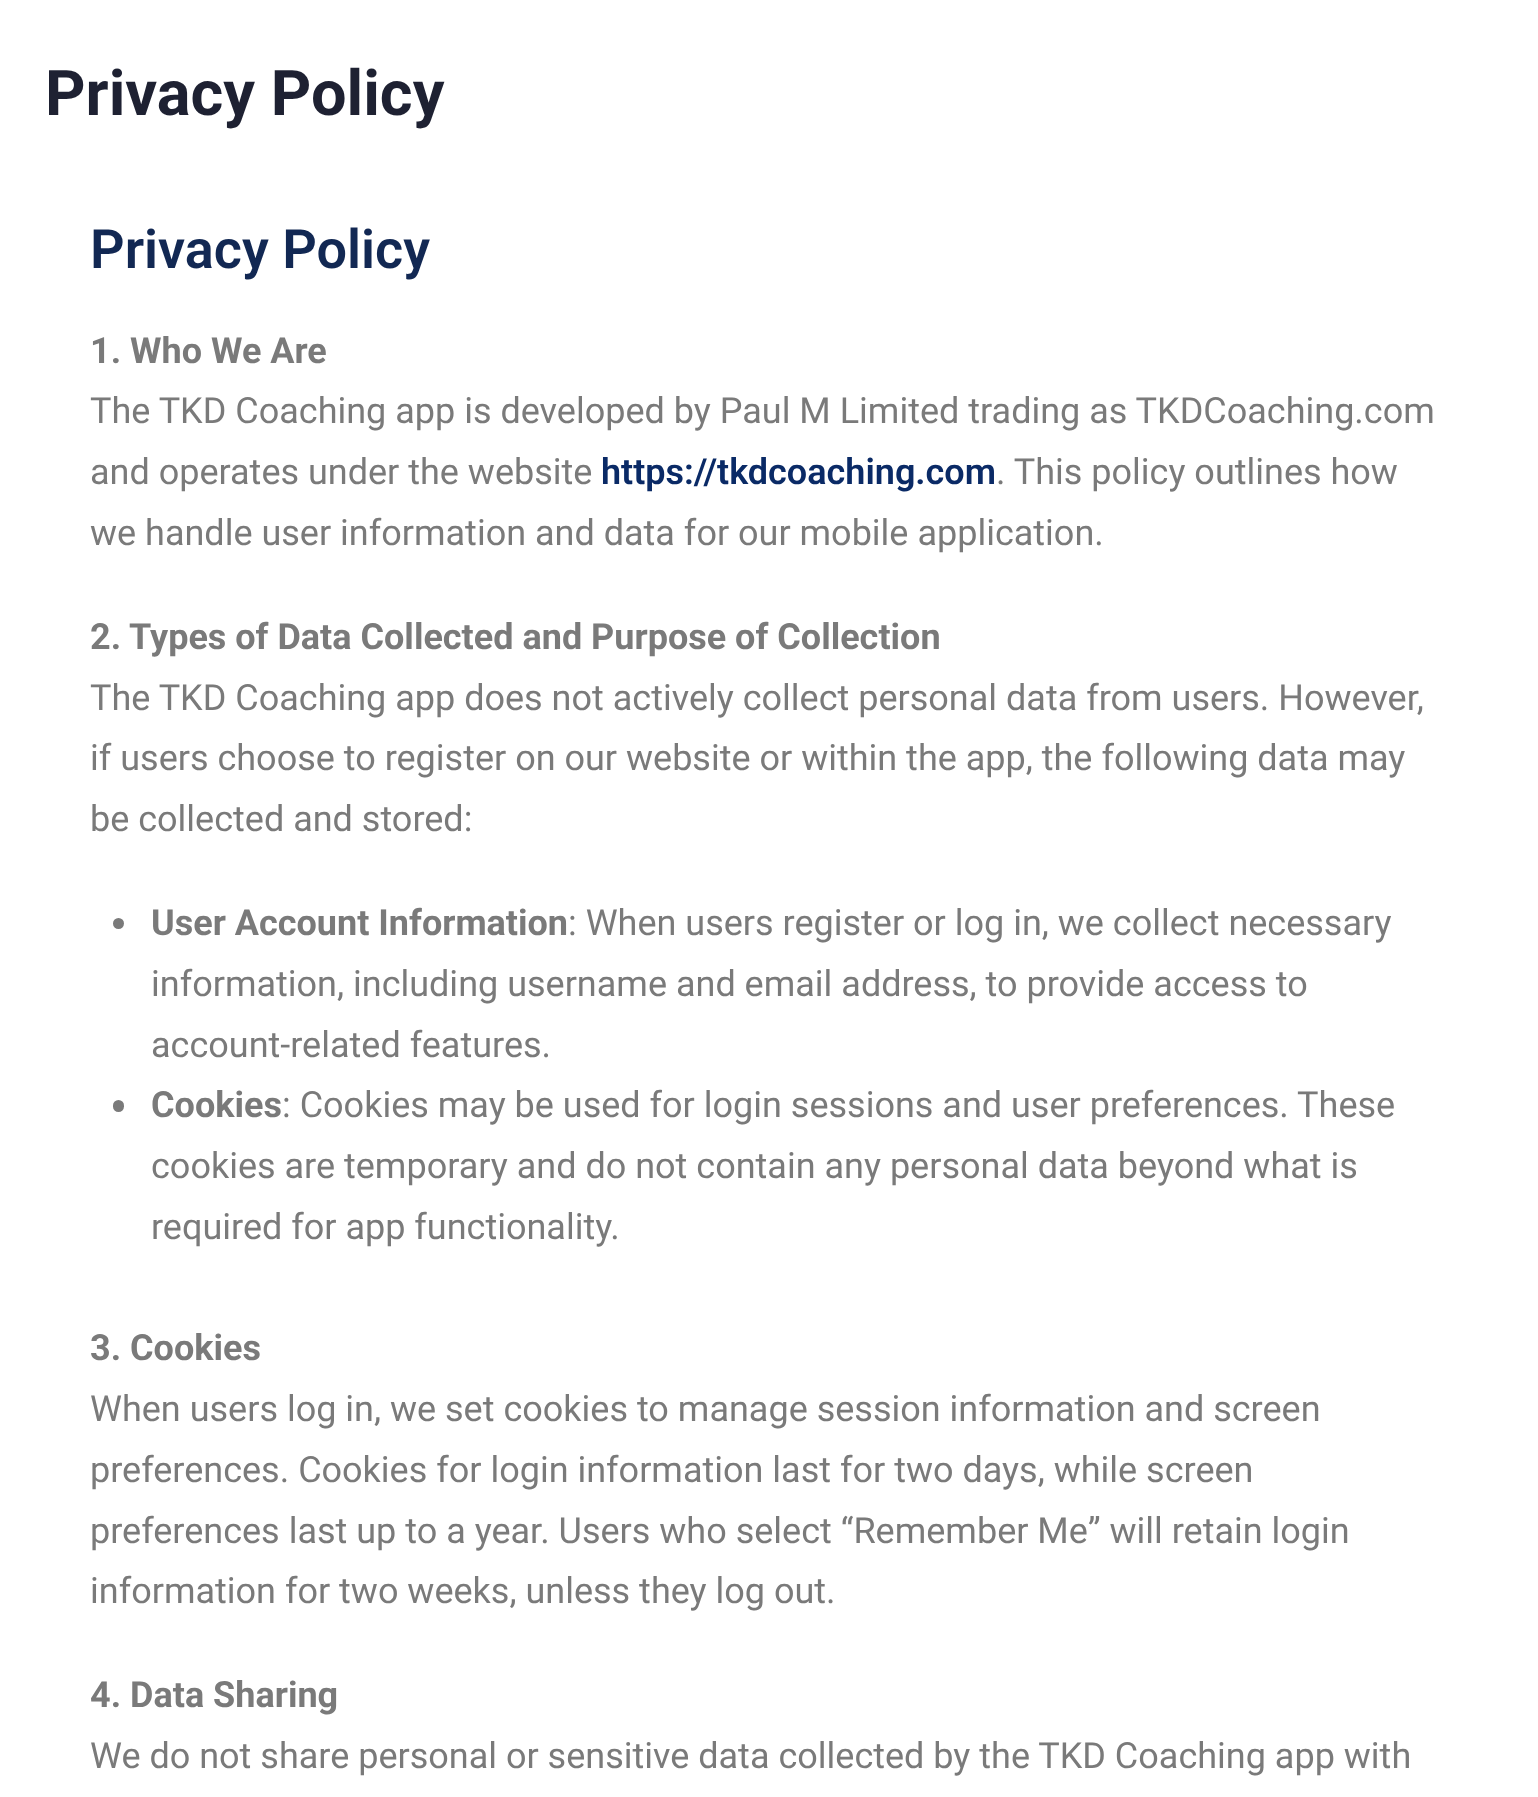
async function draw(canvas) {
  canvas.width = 1538
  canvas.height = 1797
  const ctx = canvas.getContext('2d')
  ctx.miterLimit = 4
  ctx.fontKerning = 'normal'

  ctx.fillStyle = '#fff'
  ctx.fillRect(0, 0, 1538, 1797)
  ctx.font = 'bold 63px Roboto'
  ctx.fillStyle = '#1e2132'
  ctx.fillText('Privacy Policy', 45, 115)
  ctx.font = '600 54px Roboto'
  ctx.fillStyle = '#122853'
  ctx.fillText('Privacy Policy', 90, 268)
  ctx.font = 'bold 36px Roboto'
  ctx.fillStyle = '#7a7a7a'
  ctx.fillText('1. Who We Are', 90, 363)
  ctx.font = '36px Roboto'
  ctx.fillText('The TKD Coaching app is developed by Paul M Limited trading as TKDCoaching.com', 90, 423)
  ctx.fillText('and operates under the website', 90, 484)
  ctx.font = '600 36px Roboto'
  ctx.fillStyle = '#0a2a66'
  ctx.fillText('https://tkdcoaching.com', 601, 484)
  ctx.font = '36px Roboto'
  ctx.fillStyle = '#7a7a7a'
  ctx.fillText('. This policy outlines how', 996, 484)
  ctx.fillText('we handle user information and data for our mobile application.', 90, 545)
  ctx.font = 'bold 36px Roboto'
  ctx.fillText('2. Types of Data Collected and Purpose of Collection', 90, 649)
  ctx.font = '36px Roboto'
  ctx.fillText('The TKD Coaching app does not actively collect personal data from users. However,', 90, 710)
  ctx.fillText('if users choose to register on our website or within the app, the following data may', 90, 770)
  ctx.fillText('be collected and stored:', 90, 831)
  ctx.beginPath()
  ctx.arc(118.5, 923.5, 5.5, 0, 2 * Math.PI)
  ctx.fill()
  ctx.font = 'bold 36px Roboto'
  ctx.fillText('User Account Information', 151, 935)
  ctx.font = '36px Roboto'
  ctx.fillText(': When users register or log in, we collect necessary', 568, 935)
  ctx.fillText('information, including username and email address, to provide access to', 151, 996)
  ctx.fillText('account-related features.', 151, 1057)
  ctx.beginPath()
  ctx.roundRect(113, 1100, 11, 12, 5.5)
  ctx.fill()
  ctx.font = 'bold 36px Roboto'
  ctx.fillText('Cookies', 151, 1117)
  ctx.font = '36px Roboto'
  ctx.fillText(': Cookies may be used for login sessions and user preferences. These', 282, 1117)
  ctx.fillText('cookies are temporary and do not contain any personal data beyond what is', 151, 1178)
  ctx.fillText('required for app functionality.', 151, 1239)
  ctx.font = 'bold 36px Roboto'
  ctx.fillText('3. Cookies', 90, 1360)
  ctx.font = '36px Roboto'
  ctx.fillText('When users log in, we set cookies to manage session information and screen', 90, 1421)
  ctx.fillText('preferences. Cookies for login information last for two days, while screen', 90, 1482)
  ctx.fillText('preferences last up to a year. Users who select “Remember Me” will retain login', 90, 1543)
  ctx.fillText('information for two weeks, unless they log out.', 90, 1603)
  ctx.font = 'bold 36px Roboto'
  ctx.fillText('4. Data Sharing', 90, 1707)
  ctx.font = '36px Roboto'
  ctx.fillText('We do not share personal or sensitive data collected by the TKD Coaching app with', 90, 1768)
}

draw(document.querySelector('canvas'))
